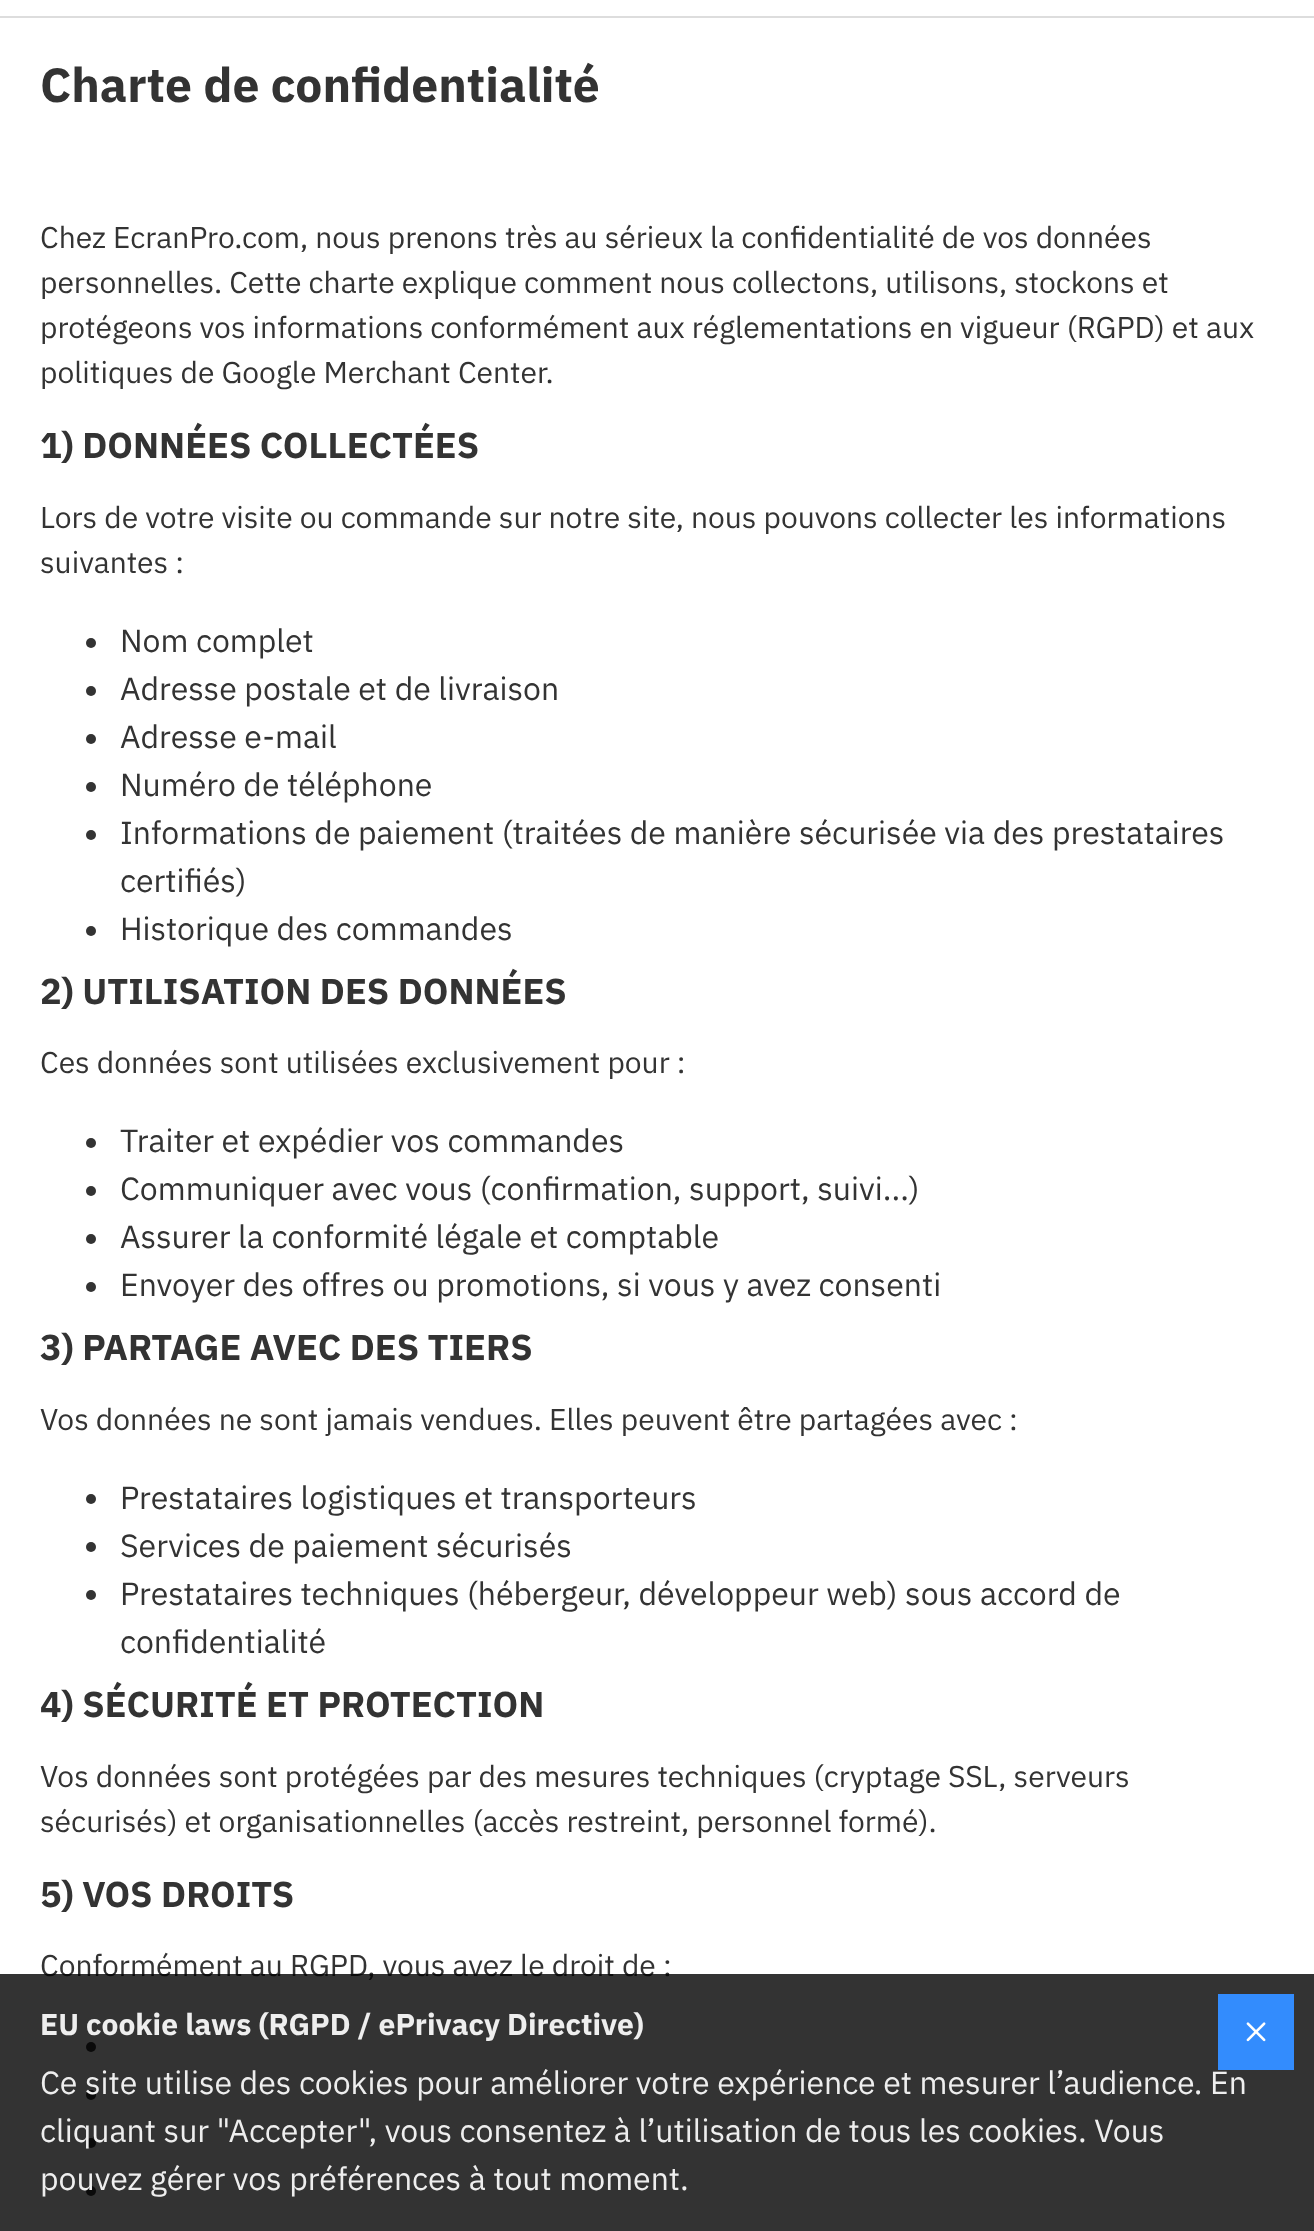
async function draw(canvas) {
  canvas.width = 1314
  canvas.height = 2231
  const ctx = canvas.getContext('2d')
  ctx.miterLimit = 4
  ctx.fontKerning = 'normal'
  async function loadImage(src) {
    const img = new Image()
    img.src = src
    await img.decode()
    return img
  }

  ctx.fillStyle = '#fff'
  ctx.fillRect(0, 0, 1314, 2231)
  ctx.fillStyle = '#ddd'
  ctx.fillRect(0, 16, 1314, 2)
  ctx.font = 'bold 48px IBM Plex Sans'
  ctx.fillStyle = '#333'
  ctx.fillText('Charte de confidentialité', 40, 102)
  ctx.font = '30px IBM Plex Sans'
  ctx.fillText('Chez EcranPro.com, nous prenons très au sérieux la confidentialité de vos données', 40, 248)
  ctx.fillText('personnelles. Cette charte explique comment nous collectons, utilisons, stockons et', 40, 293)
  ctx.fillText('protégeons vos informations conformément aux réglementations en vigueur (RGPD) et aux', 40, 338)
  ctx.fillText('politiques de Google Merchant Center.', 40, 383)
  ctx.font = 'bold 36px IBM Plex Sans'
  ctx.fillText('1) DONNÉES COLLECTÉES', 40, 458)
  ctx.font = '30px IBM Plex Sans'
  ctx.fillText('Lors de votre visite ou commande sur notre site, nous pouvons collecter les informations', 40, 528)
  ctx.fillText('suivantes :', 40, 573)
  ctx.beginPath()
  ctx.arc(91, 643, 5, 0, 2 * Math.PI)
  ctx.fill()
  ctx.font = '32px IBM Plex Sans'
  ctx.fillText('Nom complet', 120, 652)
  ctx.beginPath()
  ctx.arc(91, 691, 5, 0, 2 * Math.PI)
  ctx.fill()
  ctx.fillText('Adresse postale et de livraison', 120, 700)
  ctx.beginPath()
  ctx.arc(91, 739, 5, 0, 2 * Math.PI)
  ctx.fill()
  ctx.fillText('Adresse e-mail', 120, 748)
  ctx.beginPath()
  ctx.arc(91, 787, 5, 0, 2 * Math.PI)
  ctx.fill()
  ctx.fillText('Numéro de téléphone', 120, 796)
  ctx.beginPath()
  ctx.arc(91, 835, 5, 0, 2 * Math.PI)
  ctx.fill()
  ctx.fillText('Informations de paiement (traitées de manière sécurisée via des prestataires', 120, 844)
  ctx.fillText('certifiés)', 120, 892)
  ctx.beginPath()
  ctx.arc(91, 931, 5, 0, 2 * Math.PI)
  ctx.fill()
  ctx.fillText('Historique des commandes', 120, 940)
  ctx.font = 'bold 36px IBM Plex Sans'
  ctx.fillText('2) UTILISATION DES DONNÉES', 40, 1004)
  ctx.font = '30px IBM Plex Sans'
  ctx.fillText('Ces données sont utilisées exclusivement pour :', 40, 1073)
  ctx.beginPath()
  ctx.arc(91, 1143, 5, 0, 2 * Math.PI)
  ctx.fill()
  ctx.font = '32px IBM Plex Sans'
  ctx.fillText('Traiter et expédier vos commandes', 120, 1152)
  ctx.beginPath()
  ctx.arc(91, 1191, 5, 0, 2 * Math.PI)
  ctx.fill()
  ctx.fillText('Communiquer avec vous (confirmation, support, suivi...)', 120, 1200)
  ctx.beginPath()
  ctx.arc(91, 1239, 5, 0, 2 * Math.PI)
  ctx.fill()
  ctx.fillText('Assurer la conformité légale et comptable', 120, 1248)
  ctx.beginPath()
  ctx.arc(91, 1287, 5, 0, 2 * Math.PI)
  ctx.fill()
  ctx.fillText('Envoyer des offres ou promotions, si vous y avez consenti', 120, 1296)
  ctx.font = 'bold 36px IBM Plex Sans'
  ctx.fillText('3) PARTAGE AVEC DES TIERS', 40, 1360)
  ctx.font = '30px IBM Plex Sans'
  ctx.fillText('Vos données ne sont jamais vendues. Elles peuvent être partagées avec :', 40, 1430)
  ctx.beginPath()
  ctx.arc(91, 1499, 5, 0, 2 * Math.PI)
  ctx.fill()
  ctx.font = '32px IBM Plex Sans'
  ctx.fillText('Prestataires logistiques et transporteurs', 120, 1509)
  ctx.beginPath()
  ctx.arc(91, 1547, 5, 0, 2 * Math.PI)
  ctx.fill()
  ctx.fillText('Services de paiement sécurisés', 120, 1557)
  ctx.beginPath()
  ctx.arc(91, 1595, 5, 0, 2 * Math.PI)
  ctx.fill()
  ctx.fillText('Prestataires techniques (hébergeur, développeur web) sous accord de', 120, 1605)
  ctx.fillText('confidentialité', 120, 1653)
  ctx.font = 'bold 36px IBM Plex Sans'
  ctx.fillText('4) SÉCURITÉ ET PROTECTION', 40, 1717)
  ctx.font = '30px IBM Plex Sans'
  ctx.fillText('Vos données sont protégées par des mesures techniques (cryptage SSL, serveurs', 40, 1787)
  ctx.fillText('sécurisés) et organisationnelles (accès restreint, personnel formé).', 40, 1832)
  ctx.font = 'bold 36px IBM Plex Sans'
  ctx.fillText('5) VOS DROITS', 40, 1907)
  ctx.font = '30px IBM Plex Sans'
  ctx.fillText('Conformément au RGPD, vous avez le droit de :', 40, 1976)
  ctx.beginPath()
  ctx.arc(91, 2047, 5, 0, 2 * Math.PI)
  ctx.fill()
  ctx.beginPath()
  ctx.arc(91, 2095, 5, 0, 2 * Math.PI)
  ctx.fill()
  ctx.beginPath()
  ctx.arc(91, 2143, 5, 0, 2 * Math.PI)
  ctx.fill()
  ctx.beginPath()
  ctx.arc(91, 2191, 5, 0, 2 * Math.PI)
  ctx.fill()
  ctx.fillStyle = '#000000cc'
  ctx.fillRect(0, 1974, 1314, 257)
  ctx.font = 'bold 30px IBM Plex Sans'
  ctx.fillStyle = '#eee'
  ctx.fillText('EU cookie laws (RGPD / ePrivacy Directive)', 40, 2035)
  ctx.font = '32px IBM Plex Sans'
  ctx.fillText('Ce site utilise des cookies pour améliorer votre expérience et mesurer l’audience. En', 40, 2094)
  ctx.fillText('cliquant sur "Accepter", vous consentez à l’utilisation de tous les cookies. Vous', 40, 2142)
  ctx.fillText('pouvez gérer vos préférences à tout moment.', 40, 2190)
  ctx.fillStyle = '#338cfd'
  ctx.fillRect(1218, 1994, 76, 76)
  ctx.drawImage(await loadImage('image0.png'), 1246, 2022, 20, 20)
}

draw(document.querySelector('canvas'))
